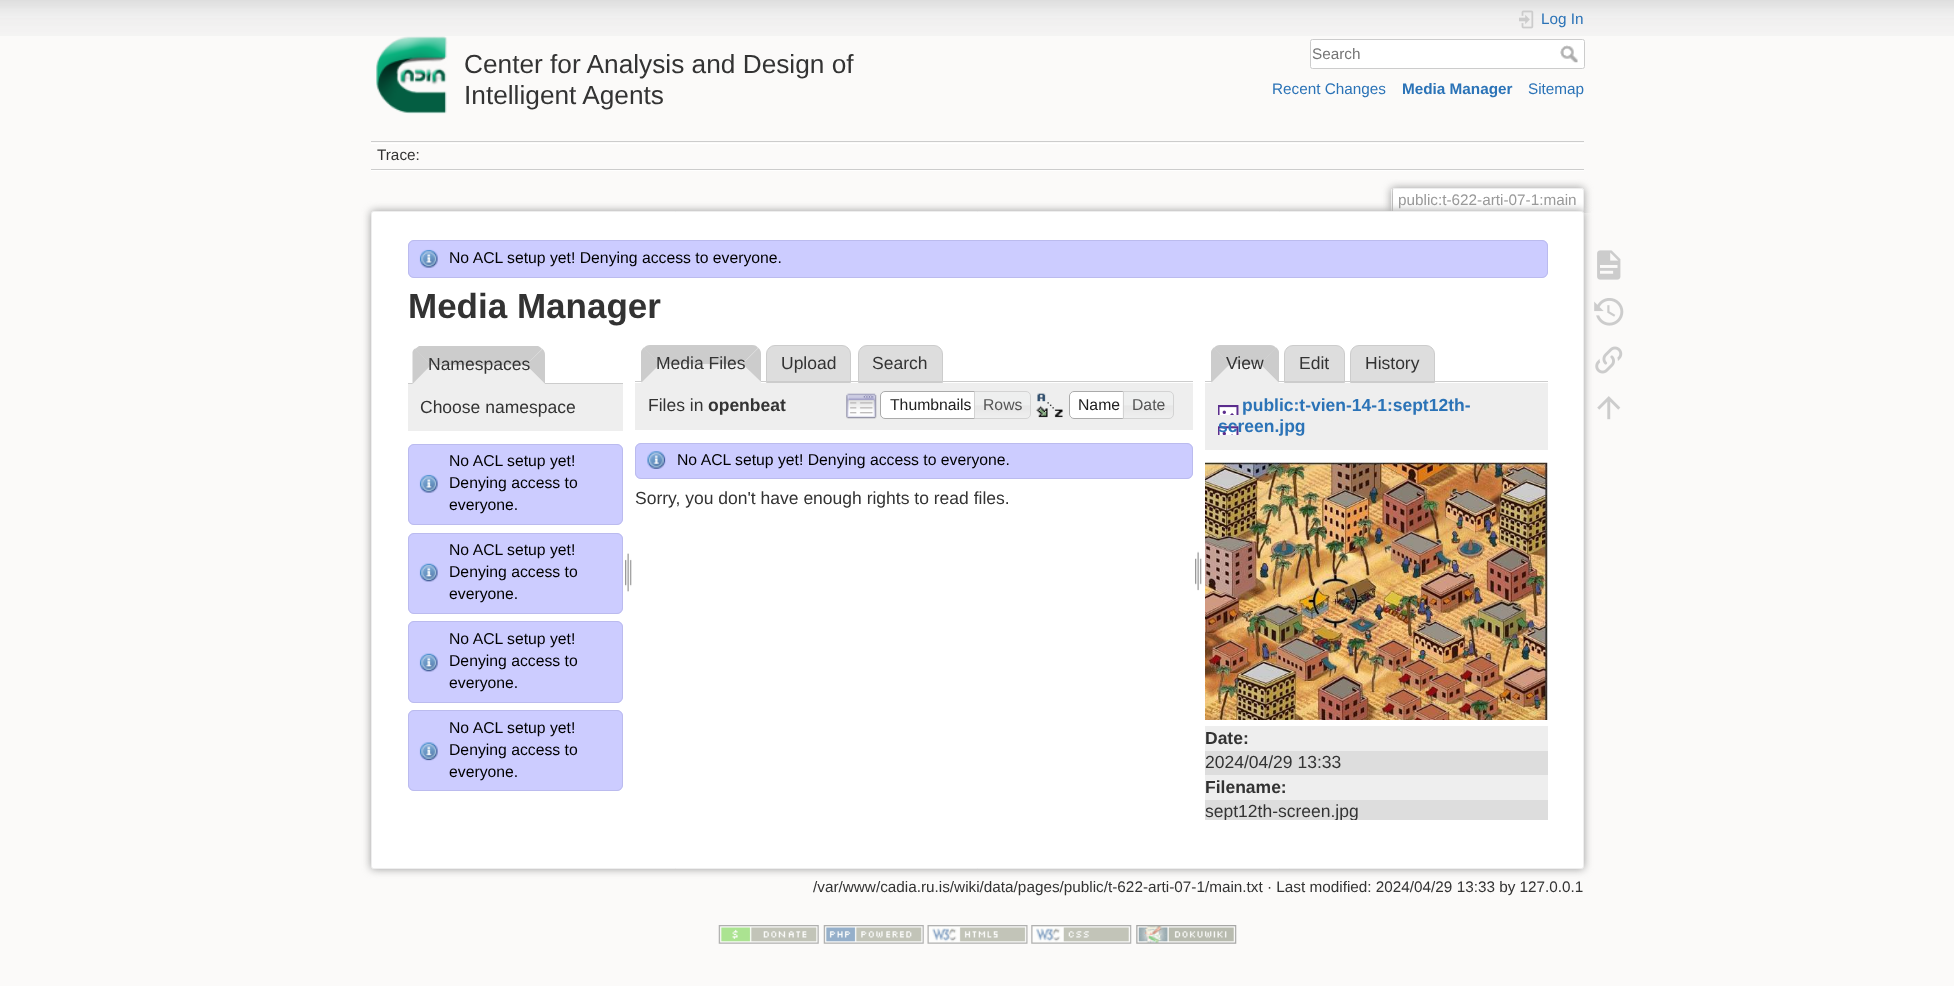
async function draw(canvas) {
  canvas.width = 1954
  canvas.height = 986
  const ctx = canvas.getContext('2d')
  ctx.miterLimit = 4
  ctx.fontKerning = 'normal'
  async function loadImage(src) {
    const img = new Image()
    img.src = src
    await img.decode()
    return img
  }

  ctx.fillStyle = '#fbfaf9'
  ctx.fillRect(0, 0, 1954, 986)
  ctx.drawImage(await loadImage('image0.png'), 0, 0, 1954, 36)
  ctx.drawImage(await loadImage('image1.png'), 376, 36, 72, 78)
  ctx.font = '26.25px Liberation Sans'
  ctx.fillStyle = '#333'
  ctx.fillText('Center for Analysis and Design of', 464, 73)
  ctx.fillText('Intelligent Agents', 464, 104)
  ctx.drawImage(await loadImage('image2.png'), 1519, 10, 15, 19)
  ctx.font = '15.3px Liberation Sans'
  ctx.fillStyle = '#2b73b7'
  ctx.fillText('Log In', 1541, 24)
  ctx.fillStyle = '#fff'
  ctx.beginPath()
  ctx.roundRect(1310.5, 39.5, 274, 29, 2)
  ctx.fill()
  ctx.strokeStyle = '#ccc'
  ctx.stroke()
  ctx.fillStyle = '#757575'
  ctx.fillText('Search', 1312, 59)
  ctx.drawImage(await loadImage('image3.png'), 1560, 45, 18, 18)
  ctx.fillStyle = '#2b73b7'
  ctx.fillText('Recent Changes', 1272, 94)
  ctx.font = 'bold 15.3px Liberation Sans'
  ctx.fillText('Media Manager', 1402, 94)
  ctx.font = '15.3px Liberation Sans'
  ctx.fillText('Sitemap', 1528, 94)
  ctx.fillStyle = '#ccc'
  ctx.fillRect(371, 141, 1213, 1)
  ctx.fillStyle = '#fff'
  ctx.fillRect(371, 170, 1213, 1)
  ctx.fillRect(371, 143, 1213, 1)
  ctx.fillStyle = '#ccc'
  ctx.fillRect(371, 169, 1213, 1)
  ctx.fillStyle = '#333'
  ctx.fillText('Trace:', 377, 160)
  ctx.save()
  ctx.beginPath()
  ctx.rect(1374, 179, 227, 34)
  ctx.clip()
  ctx.fillStyle = '#999'
  ctx.filter = 'blur(4px)'
  ctx.beginPath()
  ctx.roundRect(1391, 188, 193, 25, 2.5)
  ctx.fill()
  ctx.filter = 'none'
  ctx.restore()
  ctx.fillStyle = '#fff'
  ctx.beginPath()
  ctx.roundRect(1393, 189, 190, 24, [1, 1, 0, 0])
  ctx.fill()
  ctx.fillStyle = '#eee'
  ctx.fillRect(1393, 188, 190, 1)
  ctx.fillRect(1583, 189, 1, 24)
  ctx.fillRect(1391, 189, 1, 24)
  ctx.fillStyle = '#999'
  ctx.fillText('public:t-622-arti-07-1:main', 1398, 205)
  ctx.filter = 'blur(4.5px)'
  ctx.beginPath()
  ctx.roundRect(371, 211, 1213, 658, 2.5)
  ctx.fill()
  ctx.filter = 'none'
  ctx.fillStyle = '#fff'
  ctx.beginPath()
  ctx.roundRect(371.5, 211.5, 1212, 657, 2)
  ctx.fill()
  ctx.strokeStyle = '#eee'
  ctx.stroke()
  ctx.fillStyle = '#ccf'
  ctx.beginPath()
  ctx.roundRect(408, 240, 1140, 38, 6)
  ctx.fill()
  ctx.drawImage(await loadImage('image4.png'), 419, 249, 19, 19)
  ctx.beginPath()
  ctx.roundRect(408.5, 240.5, 1139, 37, 5.5)
  ctx.strokeStyle = '#bbe'
  ctx.stroke()
  ctx.font = '15.75px Liberation Sans'
  ctx.fillStyle = '#000'
  ctx.fillText('No ACL setup yet! Denying access to everyone.', 449, 263)
  ctx.font = 'bold 35px Liberation Sans'
  ctx.fillStyle = '#333'
  ctx.fillText('Media Manager', 408, 318)
  ctx.fillStyle = '#ccc'
  ctx.fillRect(408, 383, 215, 1)
  ctx.fillStyle = '#eee'
  ctx.beginPath()
  ctx.roundRect(413, 346, 132, 38, [9, 9, 0, 0])
  ctx.fill()
  ctx.fillStyle = '#ccc'
  ctx.beginPath()
  ctx.moveTo(538, 346)
  ctx.lineTo(419, 346)
  ctx.lineTo(415, 349)
  ctx.lineTo(431, 365)
  ctx.lineTo(526, 365)
  ctx.lineTo(542, 349)
  ctx.bezierCurveTo(541, 348, 540, 347, 538, 346)
  ctx.closePath()
  ctx.fill()
  ctx.beginPath()
  ctx.moveTo(542.5, 349)
  ctx.lineTo(526, 365)
  ctx.lineTo(545, 384)
  ctx.lineTo(545, 355)
  ctx.bezierCurveTo(545, 352.5, 544, 350.5, 542.5, 349)
  ctx.closePath()
  ctx.fill()
  ctx.fillStyle = '#eee'
  ctx.beginPath()
  ctx.moveTo(545, 384)
  ctx.lineTo(526, 365)
  ctx.lineTo(431, 365)
  ctx.lineTo(412, 384)
  ctx.closePath()
  ctx.fill()
  ctx.fillStyle = '#ccc'
  ctx.beginPath()
  ctx.moveTo(412.5, 384)
  ctx.lineTo(431, 365)
  ctx.lineTo(415, 348.5)
  ctx.bezierCurveTo(413.5, 349.5, 413, 350.5, 412.5, 352)
  ctx.closePath()
  ctx.fill()
  ctx.font = '17.5px Liberation Sans'
  ctx.fillStyle = '#333'
  ctx.fillText('Namespaces', 428, 370)
  ctx.fillStyle = '#eee'
  ctx.fillRect(408, 384, 215, 47)
  ctx.fillStyle = '#333'
  ctx.fillText('Choose namespace', 420, 413)
  ctx.fillStyle = '#ccf'
  ctx.beginPath()
  ctx.roundRect(408, 444, 215, 81, 6)
  ctx.fill()
  ctx.drawImage(await loadImage('image4.png'), 419, 474, 19, 19)
  ctx.beginPath()
  ctx.roundRect(408.5, 444.5, 214, 80, 5.5)
  ctx.stroke()
  ctx.font = '15.75px Liberation Sans'
  ctx.fillStyle = '#000'
  ctx.fillText('No ACL setup yet!', 449, 466)
  ctx.fillText('Denying access to', 449, 488)
  ctx.fillText('everyone.', 449, 510)
  ctx.fillStyle = '#ccf'
  ctx.beginPath()
  ctx.roundRect(408, 533, 215, 81, 6)
  ctx.fill()
  ctx.drawImage(await loadImage('image5.png'), 419, 563, 19, 19)
  ctx.beginPath()
  ctx.roundRect(408.5, 533.5, 214, 80, 5.5)
  ctx.stroke()
  ctx.fillStyle = '#000'
  ctx.fillText('No ACL setup yet!', 449, 555)
  ctx.fillText('Denying access to', 449, 577)
  ctx.fillText('everyone.', 449, 599)
  ctx.fillStyle = '#ccf'
  ctx.beginPath()
  ctx.roundRect(408, 621, 215, 82, 6)
  ctx.fill()
  ctx.drawImage(await loadImage('image5.png'), 419, 653, 19, 19)
  ctx.beginPath()
  ctx.roundRect(408.5, 621.5, 214, 81, 5.5)
  ctx.stroke()
  ctx.fillStyle = '#000'
  ctx.fillText('No ACL setup yet!', 449, 644)
  ctx.fillText('Denying access to', 449, 666)
  ctx.fillText('everyone.', 449, 688)
  ctx.fillStyle = '#ccf'
  ctx.beginPath()
  ctx.roundRect(408, 710, 215, 81, 6)
  ctx.fill()
  ctx.drawImage(await loadImage('image6.png'), 419, 742, 19, 19)
  ctx.beginPath()
  ctx.roundRect(408.5, 710.5, 214, 80, 5.5)
  ctx.stroke()
  ctx.fillStyle = '#000'
  ctx.fillText('No ACL setup yet!', 449, 733)
  ctx.fillText('Denying access to', 449, 755)
  ctx.fillText('everyone.', 449, 777)
  ctx.drawImage(await loadImage('image7.png'), 625, 553, 7, 39)
  ctx.fillStyle = '#ddd'
  ctx.beginPath()
  ctx.roundRect(766.5, 345.5, 84, 37, [8.5, 8.5, 0, 0])
  ctx.fill()
  ctx.strokeStyle = '#ccc'
  ctx.stroke()
  ctx.beginPath()
  ctx.roundRect(858.5, 345.5, 84, 37, [8.5, 8.5, 0, 0])
  ctx.fill()
  ctx.stroke()
  ctx.fillStyle = '#ccc'
  ctx.fillRect(635, 381, 558, 1)
  ctx.fillStyle = '#eee'
  ctx.beginPath()
  ctx.roundRect(641, 345, 120, 38, [9, 9, 0, 0])
  ctx.fill()
  ctx.fillStyle = '#ccc'
  ctx.beginPath()
  ctx.moveTo(650, 345)
  ctx.lineTo(752, 345)
  ctx.bezierCurveTo(755, 345, 757, 346, 758, 348)
  ctx.lineTo(742, 364)
  ctx.lineTo(660, 364)
  ctx.lineTo(644, 348)
  ctx.bezierCurveTo(645, 346, 648, 345, 650, 345)
  ctx.closePath()
  ctx.fill()
  ctx.beginPath()
  ctx.moveTo(758.5, 348)
  ctx.lineTo(742.5, 364)
  ctx.lineTo(761, 382)
  ctx.lineTo(761, 354)
  ctx.bezierCurveTo(761, 351.5, 760, 349.5, 758.5, 348)
  ctx.closePath()
  ctx.fill()
  ctx.fillStyle = '#eee'
  ctx.beginPath()
  ctx.moveTo(761, 382)
  ctx.lineTo(742, 364)
  ctx.lineTo(660, 364)
  ctx.lineTo(642, 382)
  ctx.closePath()
  ctx.fill()
  ctx.fillStyle = '#ccc'
  ctx.beginPath()
  ctx.moveTo(642, 382)
  ctx.lineTo(660, 364)
  ctx.lineTo(644, 347.5)
  ctx.bezierCurveTo(642.5, 348.5, 641.5, 350, 641, 352)
  ctx.lineTo(641, 382)
  ctx.closePath()
  ctx.fill()
  ctx.font = '17.5px Liberation Sans'
  ctx.fillStyle = '#333'
  ctx.fillText('Media Files', 656, 369)
  ctx.fillText('Upload', 781, 369)
  ctx.fillText('Search', 872, 369)
  ctx.fillStyle = '#eee'
  ctx.fillRect(635, 383, 558, 47)
  ctx.fillStyle = '#333'
  ctx.fillText('Files in', 648, 411)
  ctx.font = 'bold 17.5px Liberation Sans'
  ctx.fillText('openbeat', 708, 411)
  ctx.drawImage(await loadImage('image8.png'), 846, 393, 31, 26)
  ctx.fillStyle = '#fff'
  ctx.beginPath()
  ctx.roundRect(880.5, 391.5, 99, 27, [4.5, 0, 0, 4.5])
  ctx.fill()
  ctx.strokeStyle = '#aaa'
  ctx.stroke()
  ctx.font = '15.75px Liberation Sans'
  ctx.fillStyle = '#212121'
  ctx.fillText('Thumbnails', 890, 410)
  ctx.drawImage(await loadImage('image9.png'), 975, 391, 56, 28)
  ctx.beginPath()
  ctx.roundRect(974.5, 391.5, 56, 27, [0, 4.5, 4.5, 0])
  ctx.strokeStyle = '#d3d3d3'
  ctx.stroke()
  ctx.fillStyle = '#555'
  ctx.fillText('Rows', 983, 410)
  ctx.drawImage(await loadImage('image10.png'), 1036, 393, 27, 25)
  ctx.fillStyle = '#fff'
  ctx.beginPath()
  ctx.roundRect(1069, 391, 60, 28, [5, 0, 0, 5])
  ctx.fill()
  ctx.drawImage(await loadImage('image11.png'), 1069, 393, 2, 25)
  ctx.beginPath()
  ctx.roundRect(1069.5, 391.5, 59, 27, [4.5, 0, 0, 4.5])
  ctx.strokeStyle = '#aaa'
  ctx.stroke()
  ctx.fillStyle = '#212121'
  ctx.fillText('Name', 1078, 410)
  ctx.drawImage(await loadImage('image12.png'), 1122, 391, 52, 28)
  ctx.beginPath()
  ctx.roundRect(1123.5, 391.5, 50, 27, [0, 4.5, 4.5, 0])
  ctx.strokeStyle = '#d3d3d3'
  ctx.stroke()
  ctx.fillStyle = '#555'
  ctx.fillText('Date', 1132, 410)
  ctx.fillStyle = '#ccf'
  ctx.beginPath()
  ctx.roundRect(635, 443, 558, 36, 6)
  ctx.fill()
  ctx.drawImage(await loadImage('image13.png'), 647, 451, 19, 18)
  ctx.beginPath()
  ctx.roundRect(635.5, 443.5, 557, 35, 5.5)
  ctx.strokeStyle = '#bbe'
  ctx.stroke()
  ctx.fillStyle = '#000'
  ctx.fillText('No ACL setup yet! Denying access to everyone.', 677, 465)
  ctx.font = '17.5px Liberation Sans'
  ctx.fillStyle = '#333'
  ctx.fillText('Sorry, you don\'t have enough rights to read files.', 635, 504)
  ctx.drawImage(await loadImage('image14.png'), 1195, 551, 7, 40)
  ctx.fillStyle = '#ddd'
  ctx.beginPath()
  ctx.roundRect(1284.5, 345.5, 60, 37, [8.5, 8.5, 0, 0])
  ctx.fill()
  ctx.strokeStyle = '#ccc'
  ctx.stroke()
  ctx.beginPath()
  ctx.roundRect(1350.5, 345.5, 84, 37, [8.5, 8.5, 0, 0])
  ctx.fill()
  ctx.stroke()
  ctx.fillStyle = '#ccc'
  ctx.fillRect(1205, 381, 343, 1)
  ctx.fillStyle = '#eee'
  ctx.beginPath()
  ctx.roundRect(1211, 345, 68, 38, [9, 9, 0, 0])
  ctx.fill()
  ctx.fillStyle = '#ccc'
  ctx.beginPath()
  ctx.moveTo(1220, 345)
  ctx.lineTo(1270, 345)
  ctx.bezierCurveTo(1272, 345, 1275, 346, 1276, 348)
  ctx.lineTo(1260, 364)
  ctx.lineTo(1230, 364)
  ctx.lineTo(1214, 348)
  ctx.bezierCurveTo(1215, 346, 1218, 345, 1220, 345)
  ctx.closePath()
  ctx.fill()
  ctx.beginPath()
  ctx.moveTo(1276, 347.5)
  ctx.lineTo(1260, 364)
  ctx.lineTo(1278, 382)
  ctx.lineTo(1279, 382)
  ctx.lineTo(1279, 352)
  ctx.bezierCurveTo(1278.5, 350, 1277.5, 348.5, 1276, 347.5)
  ctx.closePath()
  ctx.fill()
  ctx.fillStyle = '#eee'
  ctx.beginPath()
  ctx.moveTo(1278, 382)
  ctx.lineTo(1260, 364)
  ctx.lineTo(1230, 364)
  ctx.lineTo(1212, 382)
  ctx.closePath()
  ctx.fill()
  ctx.fillStyle = '#ccc'
  ctx.beginPath()
  ctx.moveTo(1212, 382)
  ctx.lineTo(1230, 364)
  ctx.lineTo(1214, 347.5)
  ctx.bezierCurveTo(1212.5, 348.5, 1211.5, 350, 1211, 352)
  ctx.lineTo(1211, 382)
  ctx.closePath()
  ctx.fill()
  ctx.fillStyle = '#333'
  ctx.fillText('View', 1226, 369)
  ctx.fillText('Edit', 1299, 369)
  ctx.fillText('History', 1365, 369)
  ctx.fillStyle = '#eee'
  ctx.fillRect(1205, 383, 343, 67)
  ctx.drawImage(await loadImage('image15.png'), 1218, 405, 21, 30)
  ctx.font = 'bold 17.5px Liberation Sans'
  ctx.fillStyle = '#2b73b7'
  ctx.fillText('public:t-vien-14-1:sept12th-', 1242, 411)
  ctx.fillText('screen.jpg', 1218, 432)
  ctx.drawImage(await loadImage('image16.png'), 1205, 462, 343, 258)
  ctx.fillStyle = '#eee'
  ctx.fillRect(1205, 726, 343, 25)
  ctx.fillStyle = '#333'
  ctx.fillText('Date:', 1205, 744)
  ctx.fillStyle = '#ddd'
  ctx.fillRect(1205, 751, 343, 24)
  ctx.font = '17.5px Liberation Sans'
  ctx.fillStyle = '#333'
  ctx.fillText('2024/04/29 13:33', 1205, 768)
  ctx.fillStyle = '#eee'
  ctx.fillRect(1205, 775, 343, 25)
  ctx.font = 'bold 17.5px Liberation Sans'
  ctx.fillStyle = '#333'
  ctx.fillText('Filename:', 1205, 793)
  ctx.fillStyle = '#ddd'
  ctx.fillRect(1205, 800, 343, 20)
  ctx.save()
  ctx.beginPath()
  ctx.rect(1205, 463, 343, 357)
  ctx.clip()
  ctx.font = '17.5px Liberation Sans'
  ctx.fillStyle = '#333'
  ctx.fillText('sept12th-screen.jpg', 1205, 817)
  ctx.restore()
  ctx.font = '15.3px Liberation Sans'
  ctx.fillStyle = '#333'
  ctx.fillText('/var/www/cadia.ru.is/wiki/data/pages/public/t-622-arti-07-1/main.txt · Last modified: 2024/04/29 13:33 by 127.0.0.1', 813, 892)
  ctx.drawImage(await loadImage('image17.png'), 1597, 250, 24, 30)
  ctx.drawImage(await loadImage('image18.png'), 1594, 298, 30, 28)
  ctx.drawImage(await loadImage('image19.png'), 1595, 346, 28, 28)
  ctx.drawImage(await loadImage('image20.png'), 1597, 396, 24, 24)
  ctx.drawImage(await loadImage('image21.png'), 718, 925, 101, 19)
  ctx.drawImage(await loadImage('image22.png'), 823, 925, 101, 19)
  ctx.drawImage(await loadImage('image23.png'), 927, 925, 101, 19)
  ctx.drawImage(await loadImage('image24.png'), 1031, 925, 101, 19)
  ctx.drawImage(await loadImage('image25.png'), 1136, 925, 101, 19)
}

draw(document.querySelector('canvas'))
